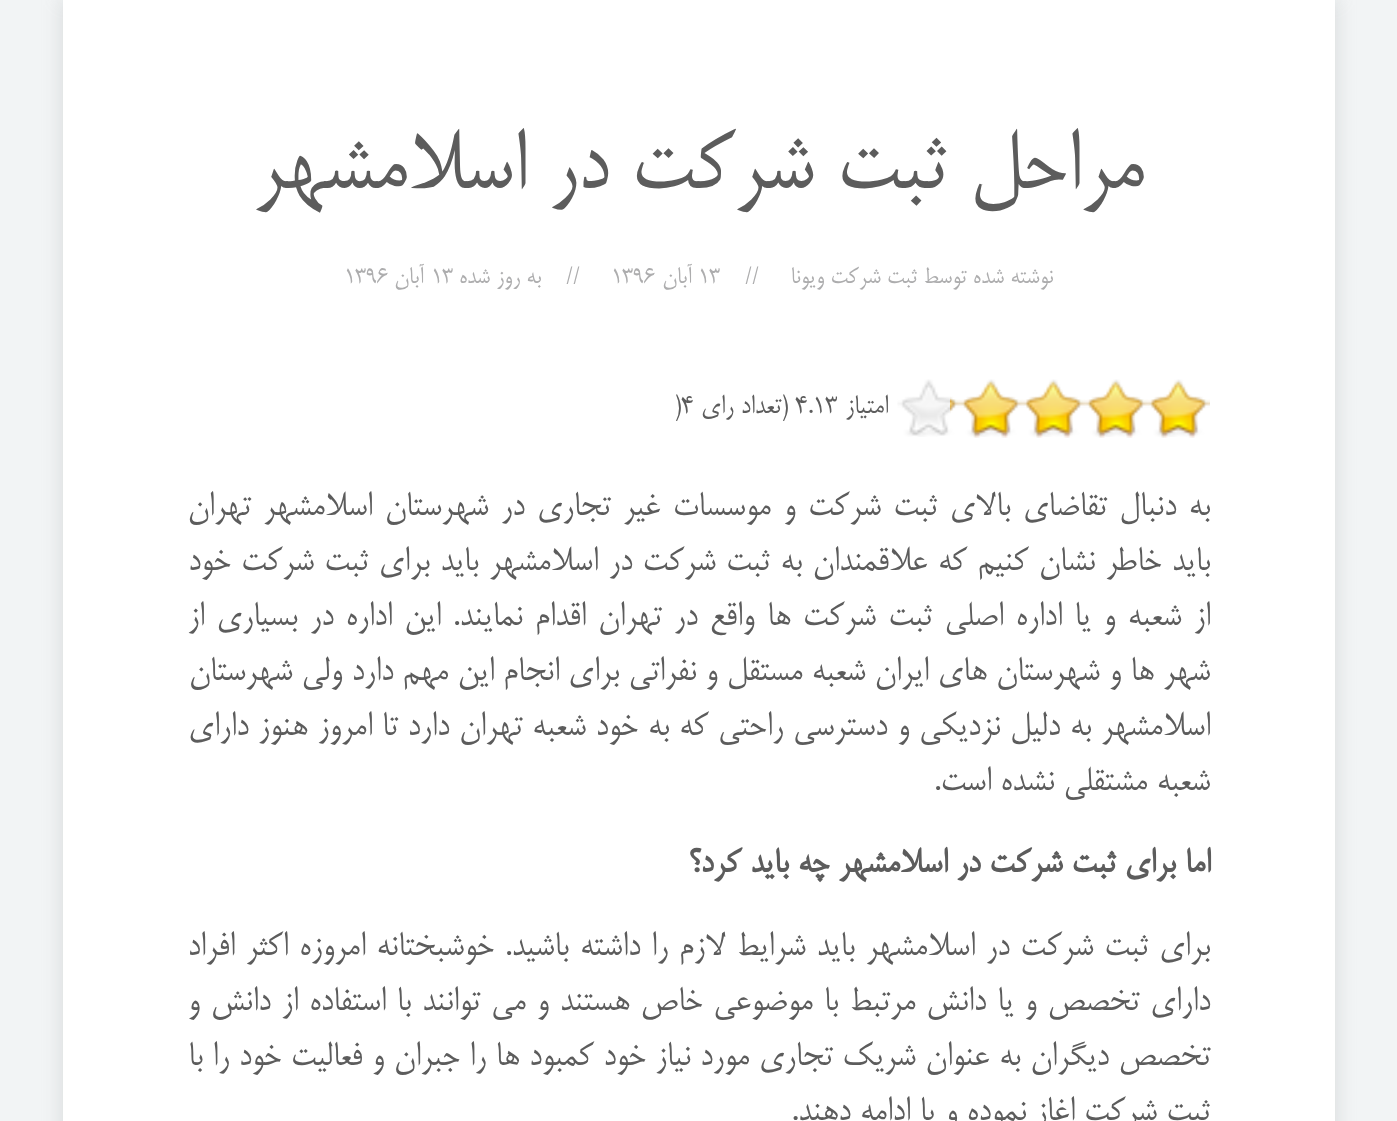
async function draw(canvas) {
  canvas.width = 1397
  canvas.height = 1121
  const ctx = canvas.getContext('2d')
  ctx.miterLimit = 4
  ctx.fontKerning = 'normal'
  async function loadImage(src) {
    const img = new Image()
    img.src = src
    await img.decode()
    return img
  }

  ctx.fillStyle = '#f2f4f5'
  ctx.fillRect(0, 0, 1397, 1121)
  ctx.fillStyle = '#a0a6a859'
  ctx.filter = 'blur(10px)'
  ctx.beginPath()
  ctx.rect(63, -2, 1272, 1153)
  ctx.fill()
  ctx.filter = 'none'
  ctx.fillStyle = '#fff'
  ctx.fillRect(63, 0, 1272, 1121)
  ctx.direction = 'rtl'
  ctx.font = '100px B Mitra'
  ctx.fillStyle = '#5c5c5c'
  ctx.fillText('مراحل ثبت شرکت در اسلامشهر', 1144, 188)
  ctx.font = '27.5px B Mitra'
  ctx.fillStyle = '#adadae'
  ctx.fillText('نوشته شده توسط', 1053, 283)
  ctx.fillText('ثبت شرکت ویونا', 917, 283)
  ctx.direction = 'ltr'
  ctx.fillText('//', 745, 283)
  ctx.fillText('13', 698, 283)
  ctx.direction = 'rtl'
  ctx.fillText('آبان', 692, 283)
  ctx.direction = 'ltr'
  ctx.fillText('1396', 611, 283)
  ctx.fillText('//', 566, 283)
  ctx.direction = 'rtl'
  ctx.fillText('به روز شده', 541, 283)
  ctx.direction = 'ltr'
  ctx.fillText('13', 431, 283)
  ctx.direction = 'rtl'
  ctx.fillText('آبان', 424, 283)
  ctx.direction = 'ltr'
  ctx.fillText('1396', 344, 283)
  ctx.drawImage(await loadImage('image0.png'), 897, 379, 313, 58)
  ctx.drawImage(await loadImage('image1.png'), 950, 380, 260, 58)
  ctx.direction = 'rtl'
  ctx.font = '31px B Mitra'
  ctx.fillStyle = '#5c5c5c'
  ctx.fillText('امتیاز', 888, 413)
  ctx.direction = 'ltr'
  ctx.fillText('4.13', 795, 413)
  ctx.direction = 'rtl'
  ctx.fillText('(تعداد رای', 788, 413)
  ctx.direction = 'ltr'
  ctx.fillText(')4', 674, 413)
  ctx.wordSpacing = '3.25px'
  ctx.direction = 'rtl'
  ctx.font = '40px B Mitra'
  ctx.fillText('به دنبال تقاضای بالای ثبت شرکت و موسسات غیر تجاری در شهرستان اسلامشهر تهران', 1210, 515)
  ctx.wordSpacing = '1.25px'
  ctx.fillText('باید خاطر نشان کنیم که علاقمندان به ثبت شرکت در اسلامشهر باید برای ثبت شرکت خود', 1210, 570)
  ctx.wordSpacing = '3.1px'
  ctx.fillText('از شعبه و یا اداره اصلی ثبت شرکت ها واقع در تهران اقدام نمایند. این اداره در بسیاری از', 1210, 625)
  ctx.wordSpacing = '0px'
  ctx.fillText('شهر ها و شهرستان های ایران شعبه مستقل و نفراتی برای انجام این مهم دارد ولی شهرستان', 1210, 680)
  ctx.wordSpacing = '0.6px'
  ctx.fillText('اسلامشهر به دلیل نزدیکی و دسترسی راحتی که به خود شعبه تهران دارد تا امروز هنوز دارای', 1210, 735)
  ctx.wordSpacing = '0px'
  ctx.fillText('شعبه مشتقلی نشده است.', 1210, 790)
  ctx.font = 'bold 40px B Mitra'
  ctx.fillText('اما برای ثبت شرکت در اسلامشهر چه باید کرد؟', 1210, 872)
  ctx.wordSpacing = '1.75px'
  ctx.font = '40px B Mitra'
  ctx.fillText('برای ثبت شرکت در اسلامشهر باید شرایط لازم را داشته باشید. خوشبختانه امروزه اکثر افراد', 1210, 955)
  ctx.fillText('دارای تخصص و یا دانش مرتبط با موضوعی خاص هستند و می توانند با استفاده از دانش و', 1210, 1010)
  ctx.wordSpacing = '0.5px'
  ctx.fillText('تخصص دیگران به عنوان شریک تجاری مورد نیاز خود کمبود ها را جبران و فعالیت خود را با', 1210, 1065)
  ctx.wordSpacing = '0px'
  ctx.fillText('ثبت شرکت اغاز نموده و یا ادامه دهند.', 1210, 1120)
}

draw(document.querySelector('canvas'))
